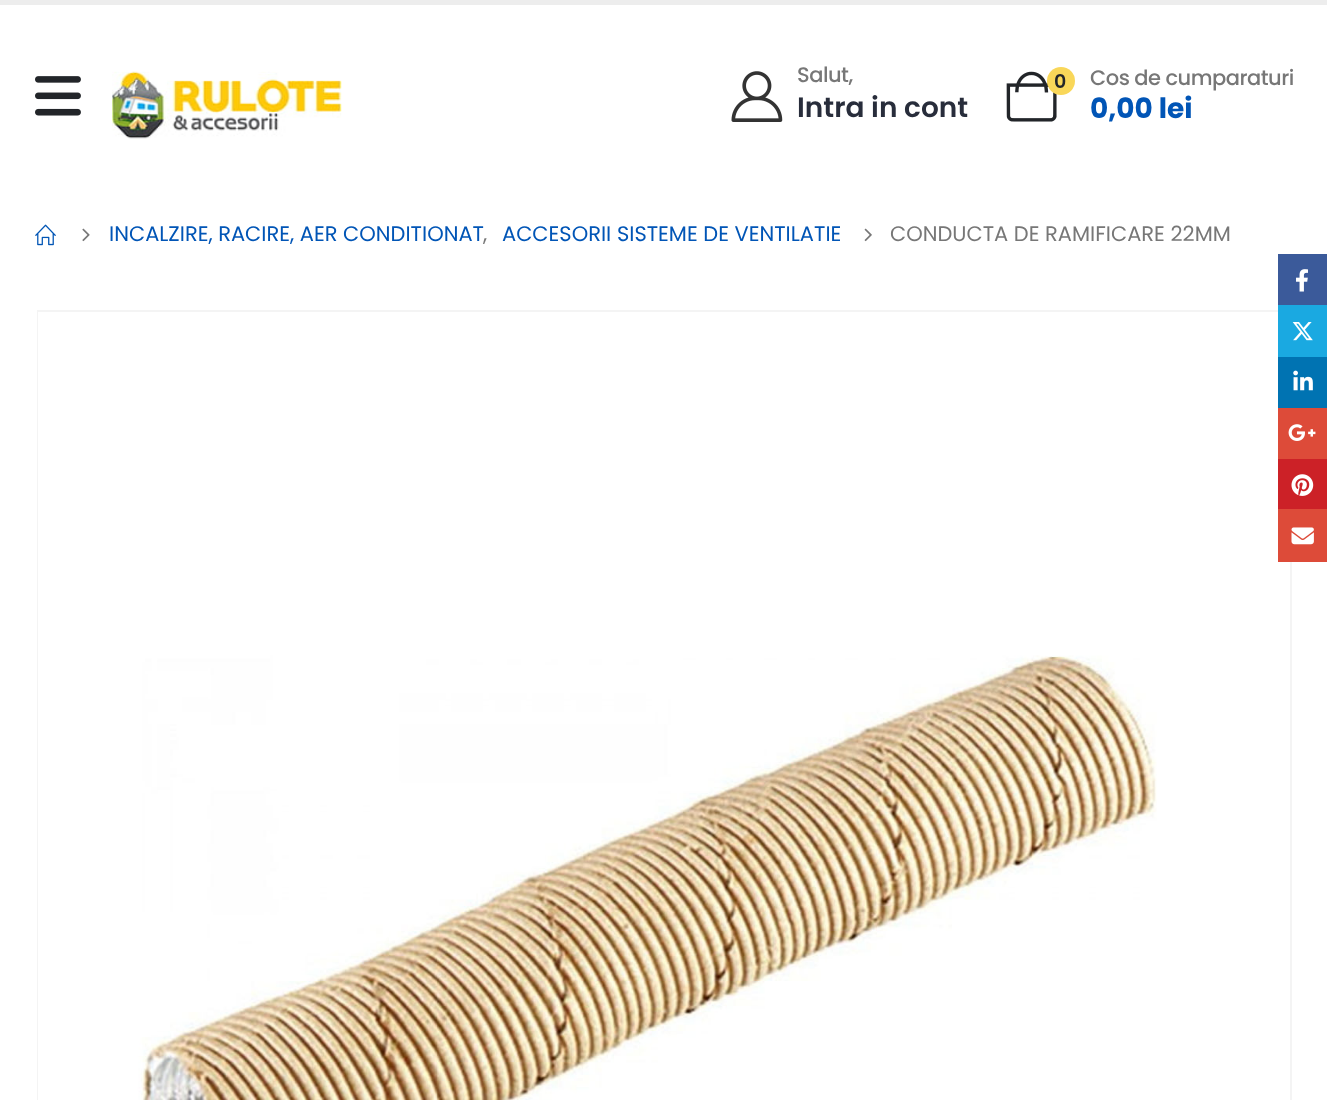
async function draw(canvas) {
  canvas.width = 1327
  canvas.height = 1100
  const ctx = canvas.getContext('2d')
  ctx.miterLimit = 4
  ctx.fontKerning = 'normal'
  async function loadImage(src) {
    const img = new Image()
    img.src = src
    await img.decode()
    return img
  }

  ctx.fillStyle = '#fff'
  ctx.fillRect(0, 0, 1327, 1100)
  ctx.fillStyle = '#ededed'
  ctx.fillRect(0, 0, 1327, 5)
  ctx.drawImage(await loadImage('image0.png'), 35, 76, 46, 40)
  ctx.drawImage(await loadImage('image1.png'), 112, 71, 230, 68)
  ctx.drawImage(await loadImage('image2.png'), 731, 71, 52, 51)
  ctx.letterSpacing = '-0.5px'
  ctx.font = '500 21px Poppins'
  ctx.fillStyle = '#777'
  ctx.fillText('Salut,', 797, 82)
  ctx.letterSpacing = '0px'
  ctx.font = '600 28px Poppins'
  ctx.fillStyle = '#282d3b'
  ctx.fillText('Intra in cont', 797, 117)
  ctx.drawImage(await loadImage('image3.png'), 1006, 71, 51, 51)
  ctx.fillStyle = '#f9d759'
  ctx.beginPath()
  ctx.arc(1061, 81, 14, 0, 2 * Math.PI)
  ctx.fill()
  ctx.font = '600 19px Poppins'
  ctx.fillStyle = '#222529'
  ctx.fillText('0', 1054, 88)
  ctx.letterSpacing = '-0.5px'
  ctx.font = '500 21px Poppins'
  ctx.fillStyle = '#777'
  ctx.fillText('Cos de cumparaturi', 1090, 85)
  ctx.letterSpacing = '0px'
  ctx.font = 'bold 28px Poppins'
  ctx.fillStyle = '#0155b6'
  ctx.fillText('0,00 lei', 1090, 118)
  ctx.drawImage(await loadImage('image4.png'), 35, 224, 21, 22)
  ctx.drawImage(await loadImage('image5.png'), 82, 228, 8, 14)
  ctx.font = '21px Poppins'
  ctx.fillText('INCALZIRE, RACIRE, AER CONDITIONAT', 109, 241)
  ctx.fillStyle = '#777'
  ctx.fillText(',', 483, 241)
  ctx.fillStyle = '#0155b6'
  ctx.fillText('ACCESORII SISTEME DE VENTILATIE', 502, 241)
  ctx.drawImage(await loadImage('image6.png'), 864, 228, 8, 14)
  ctx.fillStyle = '#777'
  ctx.fillText('CONDUCTA DE RAMIFICARE 22MM', 890, 241)
  ctx.strokeStyle = '#f4f4f4'
  ctx.lineWidth = 2
  ctx.strokeRect(38, 311, 1253, 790)
  ctx.drawImage(await loadImage('image7.png'), 38, 312, 1119, 788)
  ctx.fillStyle = '#3b5a9a'
  ctx.fillRect(1278, 254, 49, 51)
  ctx.drawImage(await loadImage('image8.png'), 1296, 269, 12, 23)
  ctx.fillStyle = '#1aa9e1'
  ctx.fillRect(1278, 305, 49, 52)
  ctx.drawImage(await loadImage('image9.png'), 1292, 322, 21, 19)
  ctx.fillStyle = '#0073b2'
  ctx.fillRect(1278, 357, 49, 51)
  ctx.drawImage(await loadImage('image10.png'), 1293, 370, 20, 21)
  ctx.fillStyle = '#dd4b39'
  ctx.fillRect(1278, 408, 49, 51)
  ctx.drawImage(await loadImage('image11.png'), 1288, 424, 28, 17)
  ctx.fillStyle = '#cc2127'
  ctx.fillRect(1278, 459, 49, 50)
  ctx.drawImage(await loadImage('image12.png'), 1291, 474, 23, 22)
  ctx.fillStyle = '#dd4b39'
  ctx.fillRect(1278, 509, 49, 53)
  ctx.drawImage(await loadImage('image13.png'), 1291, 527, 23, 18)
}

draw(document.querySelector('canvas'))
